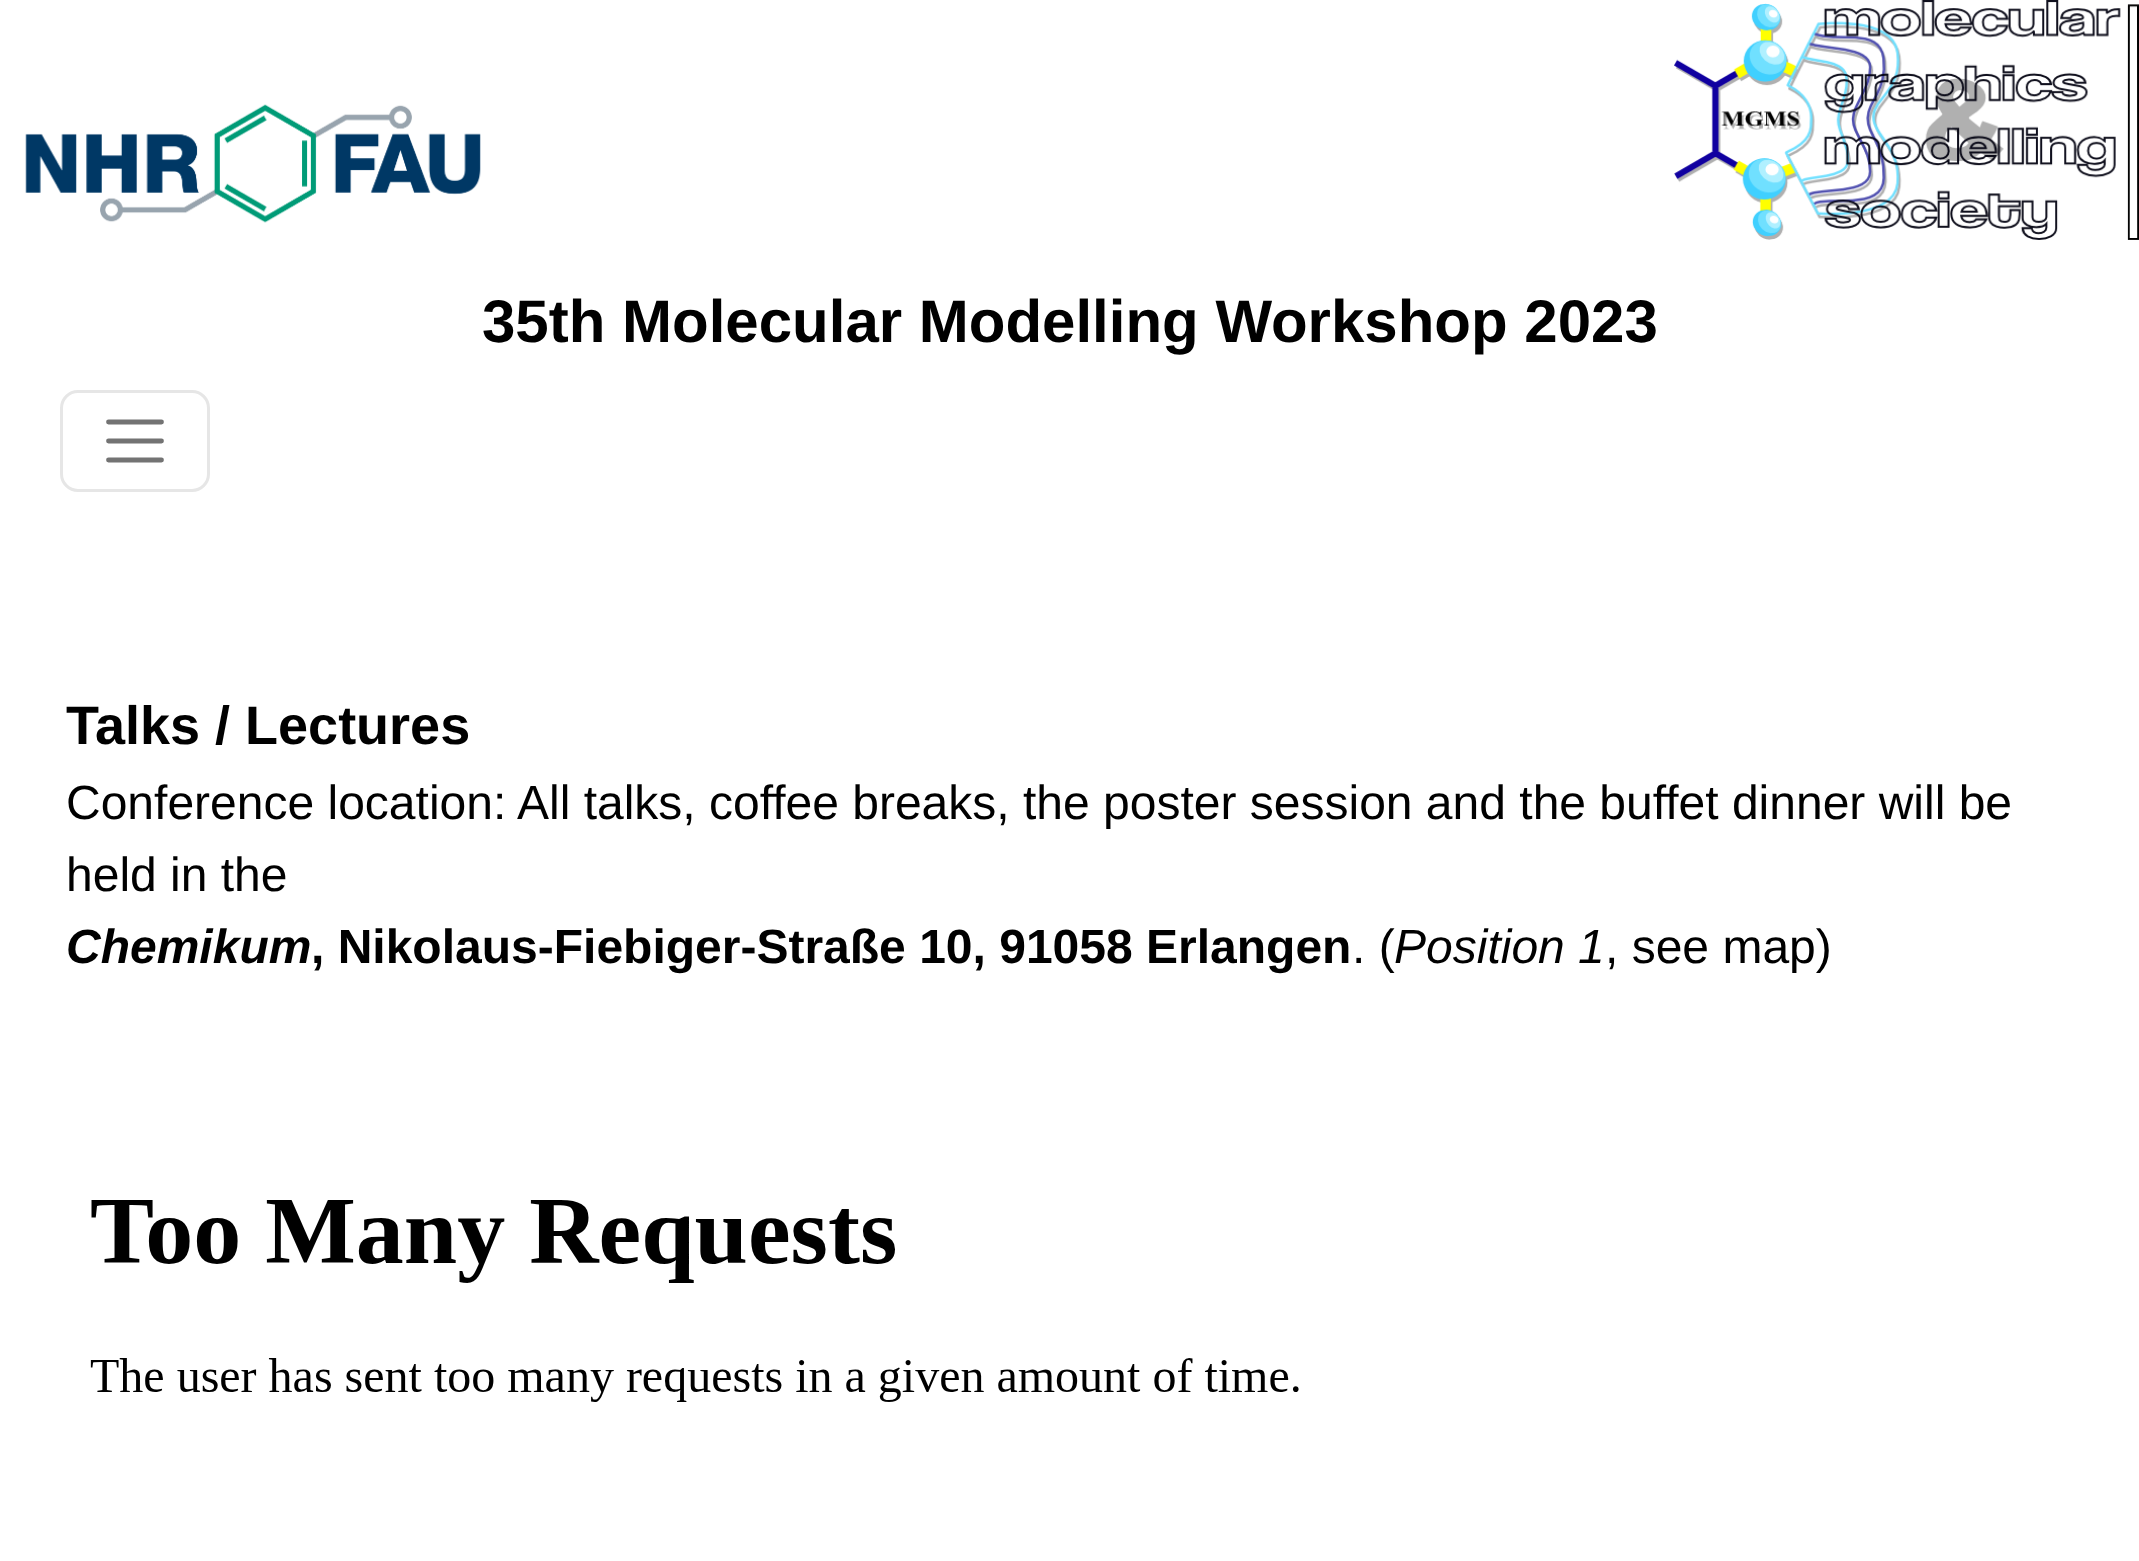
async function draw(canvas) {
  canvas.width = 2139
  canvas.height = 1561
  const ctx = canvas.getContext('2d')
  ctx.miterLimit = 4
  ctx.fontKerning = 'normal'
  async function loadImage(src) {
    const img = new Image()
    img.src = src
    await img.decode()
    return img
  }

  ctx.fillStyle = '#fff'
  ctx.fillRect(0, 0, 2139, 1561)
  ctx.drawImage(await loadImage('image0.png'), 25, 104, 456, 119)
  ctx.drawImage(await loadImage('image1.png'), 1674, 0, 465, 240)
  ctx.font = 'bold 60px Liberation Sans'
  ctx.fillStyle = '#000'
  ctx.fillText('35th Molecular Modelling Workshop 2023', 482, 342)
  ctx.beginPath()
  ctx.roundRect(61.5, 391.5, 147, 99, 16.5)
  ctx.strokeStyle = '#e6e6e6'
  ctx.lineWidth = 3
  ctx.stroke()
  ctx.beginPath()
  ctx.moveTo(108.5, 422)
  ctx.lineTo(161.5, 422)
  ctx.moveTo(108.5, 441)
  ctx.lineTo(161.5, 441)
  ctx.moveTo(108.5, 460)
  ctx.lineTo(161.5, 460)
  ctx.strokeStyle = '#737373'
  ctx.lineWidth = 4.8
  ctx.lineCap = 'round'
  ctx.stroke()
  ctx.font = 'bold 54px Liberation Sans'
  ctx.fillText('Talks / Lectures', 66, 744)
  ctx.font = '48px Liberation Sans'
  ctx.fillText('Conference location: All talks, coffee breaks, the poster session and the buffet dinner will be', 66, 819)
  ctx.fillText('held in the', 66, 891)
  ctx.font = 'italic bold 48px Liberation Sans'
  ctx.fillText('Chemikum', 66, 963)
  ctx.font = 'bold 48px Liberation Sans'
  ctx.fillText(', Nikolaus-Fiebiger-Straße 10, 91058 Erlangen', 311, 963)
  ctx.font = '48px Liberation Sans'
  ctx.fillText('. (', 1352, 963)
  ctx.font = 'italic 48px Liberation Sans'
  ctx.fillText('Position 1', 1394, 963)
  ctx.font = '48px Liberation Sans'
  ctx.fillText(', see map)', 1605, 963)
  ctx.drawImage(await loadImage('image2.png'), 90, 1200, 1209, 202)
}

draw(document.querySelector('canvas'))
